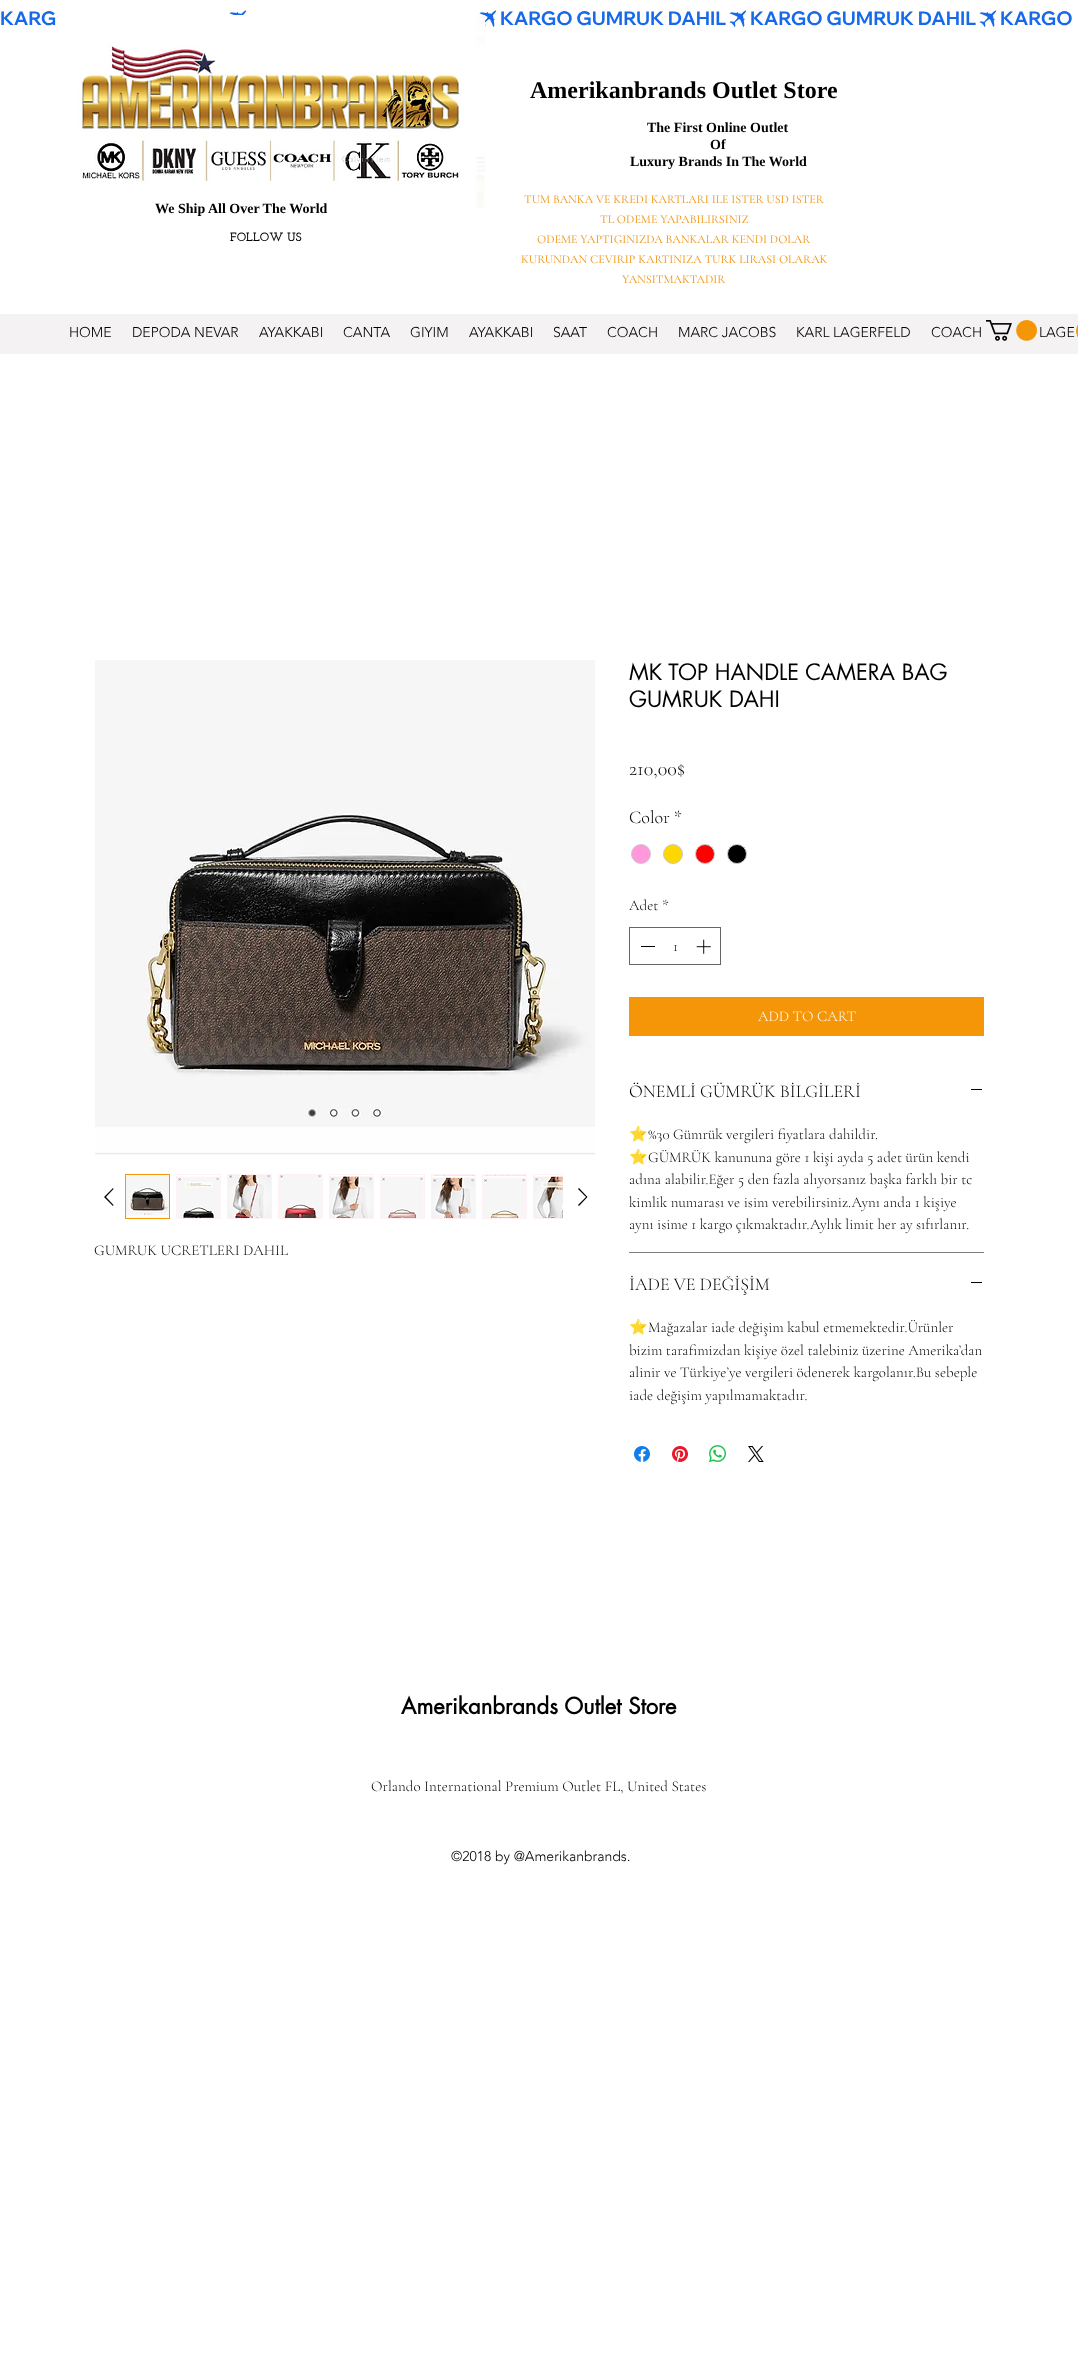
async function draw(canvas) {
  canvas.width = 1078
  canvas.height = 2371
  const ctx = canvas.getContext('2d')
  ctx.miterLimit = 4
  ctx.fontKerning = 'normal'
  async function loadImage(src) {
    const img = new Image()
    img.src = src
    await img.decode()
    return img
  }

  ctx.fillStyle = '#fff'
  ctx.fillRect(0, 0, 1078, 2371)
  ctx.font = 'bold 19px Wix Madefor Display'
  ctx.fillStyle = '#166aea'
  ctx.fillText('KARG', 0, 25)
  ctx.drawImage(await loadImage('image0.png'), 229, 10, 18, 5)
  ctx.drawImage(await loadImage('image1.png'), 479, 10, 18, 17)
  ctx.fillText('KARGO GUMRUK DAHIL', 500, 25)
  ctx.drawImage(await loadImage('image1.png'), 729, 10, 18, 17)
  ctx.fillText('KARGO GUMRUK DAHIL', 750, 25)
  ctx.drawImage(await loadImage('image1.png'), 979, 10, 18, 17)
  ctx.fillText('KARGO', 1000, 25)
  ctx.drawImage(await loadImage('image2.png'), 69, 15, 416, 193)
  ctx.font = 'bold 24px Liberation Serif'
  ctx.fillStyle = '#000'
  ctx.fillText('Amerikanbrands Outlet Store', 530, 98)
  ctx.font = 'bold 14px Liberation Serif'
  ctx.fillText('The First Online Outlet', 647, 132)
  ctx.fillText('Of', 710, 149)
  ctx.fillText('Luxury Brands In The World', 630, 166)
  ctx.fillText('We Ship All Over The World', 155, 213)
  ctx.font = 'bold 12px Josefin Slab'
  ctx.fillText('FOLLOW US', 230, 241)
  ctx.font = '500 12px Cormorant Garamond'
  ctx.fillStyle = '#f2991c'
  ctx.fillText('TUM BANKA VE KREDI KARTLARI ILE ISTER USD ISTER', 524, 203)
  ctx.fillText('TL ODEME YAPABILIRSINIZ', 600, 223)
  ctx.fillText('ODEME YAPTIGINIZDA BANKALAR KENDI DOLAR', 537, 243)
  ctx.fillText('KURUNDAN CEVIRIP KARTINIZA TURK LIRASI OLARAK', 521, 263)
  ctx.fillText('YANSITMAKTADIR', 622, 283)
  ctx.fillStyle = '#f4f2f3'
  ctx.fillRect(0, 314, 1078, 40)
  ctx.drawImage(await loadImage('image3.png'), 986, 320, 51, 21)
  ctx.font = '300 14px "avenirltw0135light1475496"'
  ctx.fillStyle = '#000'
  ctx.fillText('HOME', 69, 337)
  ctx.fillText('DEPODA NEVAR', 132, 337)
  ctx.fillText('AYAKKABI', 259, 337)
  ctx.fillText('CANTA', 343, 337)
  ctx.fillText('GIYIM', 410, 337)
  ctx.fillText('AYAKKABI', 469, 337)
  ctx.fillText('SAAT', 553, 337)
  ctx.fillText('COACH', 607, 337)
  ctx.fillText('MARC JACOBS', 678, 337)
  ctx.fillText('KARL LAGERFELD', 796, 337)
  ctx.fillText('COACH', 931, 337)
  ctx.fillText('LAGE', 1039, 337)
  ctx.drawImage(await loadImage('image4.png'), 1076, 324, 2, 14)
  ctx.drawImage(await loadImage('image5.png'), 95, 660, 500, 495)
  ctx.beginPath()
  ctx.moveTo(113, 1188)
  ctx.lineTo(113.5, 1189)
  ctx.lineTo(106, 1197)
  ctx.lineTo(113.5, 1205)
  ctx.lineTo(113, 1206)
  ctx.lineTo(104, 1197)
  ctx.closePath()
  ctx.fill('evenodd')
  ctx.strokeStyle = '#f59608'
  ctx.strokeRect(125.5, 1174.5, 44, 44)
  ctx.drawImage(await loadImage('image6.png'), 126, 1175, 43, 43)
  ctx.fillStyle = '#fff0f5'
  ctx.fillRect(176, 1174, 45, 45)
  ctx.drawImage(await loadImage('image7.png'), 177, 1175, 43, 43)
  ctx.fillRect(227, 1174, 45, 45)
  ctx.drawImage(await loadImage('image8.png'), 228, 1175, 43, 43)
  ctx.fillRect(278, 1174, 45, 45)
  ctx.drawImage(await loadImage('image9.png'), 279, 1175, 43, 43)
  ctx.fillRect(329, 1174, 45, 45)
  ctx.drawImage(await loadImage('image10.png'), 330, 1175, 43, 43)
  ctx.fillRect(380, 1174, 45, 45)
  ctx.drawImage(await loadImage('image11.png'), 381, 1175, 43, 43)
  ctx.fillRect(431, 1174, 45, 45)
  ctx.drawImage(await loadImage('image12.png'), 432, 1175, 43, 43)
  ctx.fillRect(482, 1174, 45, 45)
  ctx.drawImage(await loadImage('image13.png'), 483, 1175, 43, 43)
  ctx.fillRect(533, 1174, 30, 45)
  ctx.drawImage(await loadImage('image14.png'), 534, 1175, 29, 43)
  ctx.fillStyle = '#000'
  ctx.beginPath()
  ctx.moveTo(579, 1188)
  ctx.lineTo(587.5, 1197)
  ctx.lineTo(579, 1206)
  ctx.lineTo(578, 1205)
  ctx.lineTo(586, 1197)
  ctx.lineTo(578, 1189)
  ctx.closePath()
  ctx.fill('evenodd')
  ctx.font = '300 15px Cormorant Garamond'
  ctx.fillText('GUMRUK UCRETLERI DAHIL', 94, 1255)
  ctx.font = '22px futura'
  ctx.fillText('MK TOP HANDLE CAMERA BAG', 629, 680)
  ctx.fillText('GUMRUK DAHI', 629, 707)
  ctx.font = '300 20px Cormorant Garamond'
  ctx.fillText('210,00$', 629, 775)
  ctx.font = '300 18px Cormorant Garamond'
  ctx.fillText('Color *', 629, 823)
  ctx.fillStyle = '#ff99dc'
  ctx.beginPath()
  ctx.arc(641, 854, 9.5, 0, 2 * Math.PI)
  ctx.fill()
  ctx.strokeStyle = '#c9c9c9'
  ctx.stroke()
  ctx.fillStyle = '#ffd700'
  ctx.beginPath()
  ctx.arc(673, 854, 9.5, 0, 2 * Math.PI)
  ctx.fill()
  ctx.stroke()
  ctx.fillStyle = '#f00'
  ctx.beginPath()
  ctx.arc(705, 854, 9.5, 0, 2 * Math.PI)
  ctx.fill()
  ctx.stroke()
  ctx.fillStyle = '#000'
  ctx.beginPath()
  ctx.arc(737, 854, 9.5, 0, 2 * Math.PI)
  ctx.fill()
  ctx.stroke()
  ctx.font = '300 15px Cormorant Garamond'
  ctx.fillText('Adet', 629, 910)
  ctx.fillText('*', 662, 910)
  ctx.strokeStyle = '#666'
  ctx.strokeRect(629.5, 927.5, 91, 37)
  ctx.fillRect(641, 946, 14, 1)
  ctx.fillText('1', 673, 951)
  ctx.drawImage(await loadImage('image15.png'), 696, 939, 15, 15)
  ctx.fillStyle = '#f59608'
  ctx.fillRect(629, 997, 355, 39)
  ctx.fillStyle = '#fff'
  ctx.fillText('ADD TO CART', 758, 1021)
  ctx.fillStyle = '#7d7d7d'
  ctx.fillRect(629, 1252, 355, 1)
  ctx.font = '300 18px Cormorant Garamond'
  ctx.fillStyle = '#000'
  ctx.fillText('ÖNEMLİ GÜMRÜK BİLGİLERİ', 629, 1097)
  ctx.fillRect(971, 1089, 11, 1)
  ctx.font = '15px Noto Color Emoji'
  ctx.fillText('⭐️', 629, 1139)
  ctx.font = '300 15px Cormorant Garamond'
  ctx.fillText('%30 Gümrük vergileri fiyatlara dahildir.', 648, 1139)
  ctx.font = '15px Noto Color Emoji'
  ctx.fillText('⭐️', 629, 1162)
  ctx.font = '300 15px Cormorant Garamond'
  ctx.fillText('GÜMRÜK kanununa göre 1 kişi ayda 5 adet ürün kendi', 648, 1162)
  ctx.fillText('adına alabilir.Eğer 5 den fazla alıyorsanız başka farklı bir tc', 629, 1184)
  ctx.fillText('kimlik numarası ve isim verebilirsiniz.Aynı anda 1 kişiye', 629, 1207)
  ctx.fillText('aynı isime 1 kargo çıkmaktadır.Aylık limit her ay sıfırlanır.', 629, 1229)
  ctx.font = '300 18px Cormorant Garamond'
  ctx.fillText('İADE VE DEĞİŞİM', 629, 1290)
  ctx.fillRect(971, 1282, 11, 1)
  ctx.font = '15px Noto Color Emoji'
  ctx.fillText('⭐️', 629, 1332)
  ctx.font = '300 15px Cormorant Garamond'
  ctx.fillText('Mağazalar iade değişim kabul etmemektedir.Ürünler', 648, 1332)
  ctx.fillText('bizim tarafimizdan kişiye özel talebiniz üzerine Amerika’dan', 629, 1355)
  ctx.fillText('alinir ve Türkiye’ye vergileri ödenerek kargolanır.Bu sebeple', 629, 1377)
  ctx.fillText('iade değişim yapılmamaktadır.', 629, 1400)
  ctx.drawImage(await loadImage('image16.png'), 634, 1446, 16, 16)
  ctx.drawImage(await loadImage('image17.png'), 672, 1446, 16, 16)
  ctx.drawImage(await loadImage('image18.png'), 709, 1445, 17, 17)
  ctx.drawImage(await loadImage('image19.png'), 748, 1446, 16, 16)
  ctx.font = 'bold 22px futura'
  ctx.fillText('Amerikanbrands Outlet Store', 401, 1714)
  ctx.font = '300 15px Cormorant Garamond'
  ctx.fillText('Orlando International Premium Outlet FL, United States', 371, 1791)
  ctx.font = '300 14px "avenirltw0135light1475496"'
  ctx.fillText('©2018 by @Amerikanbrands.', 451, 1861)
}

draw(document.querySelector('canvas'))
